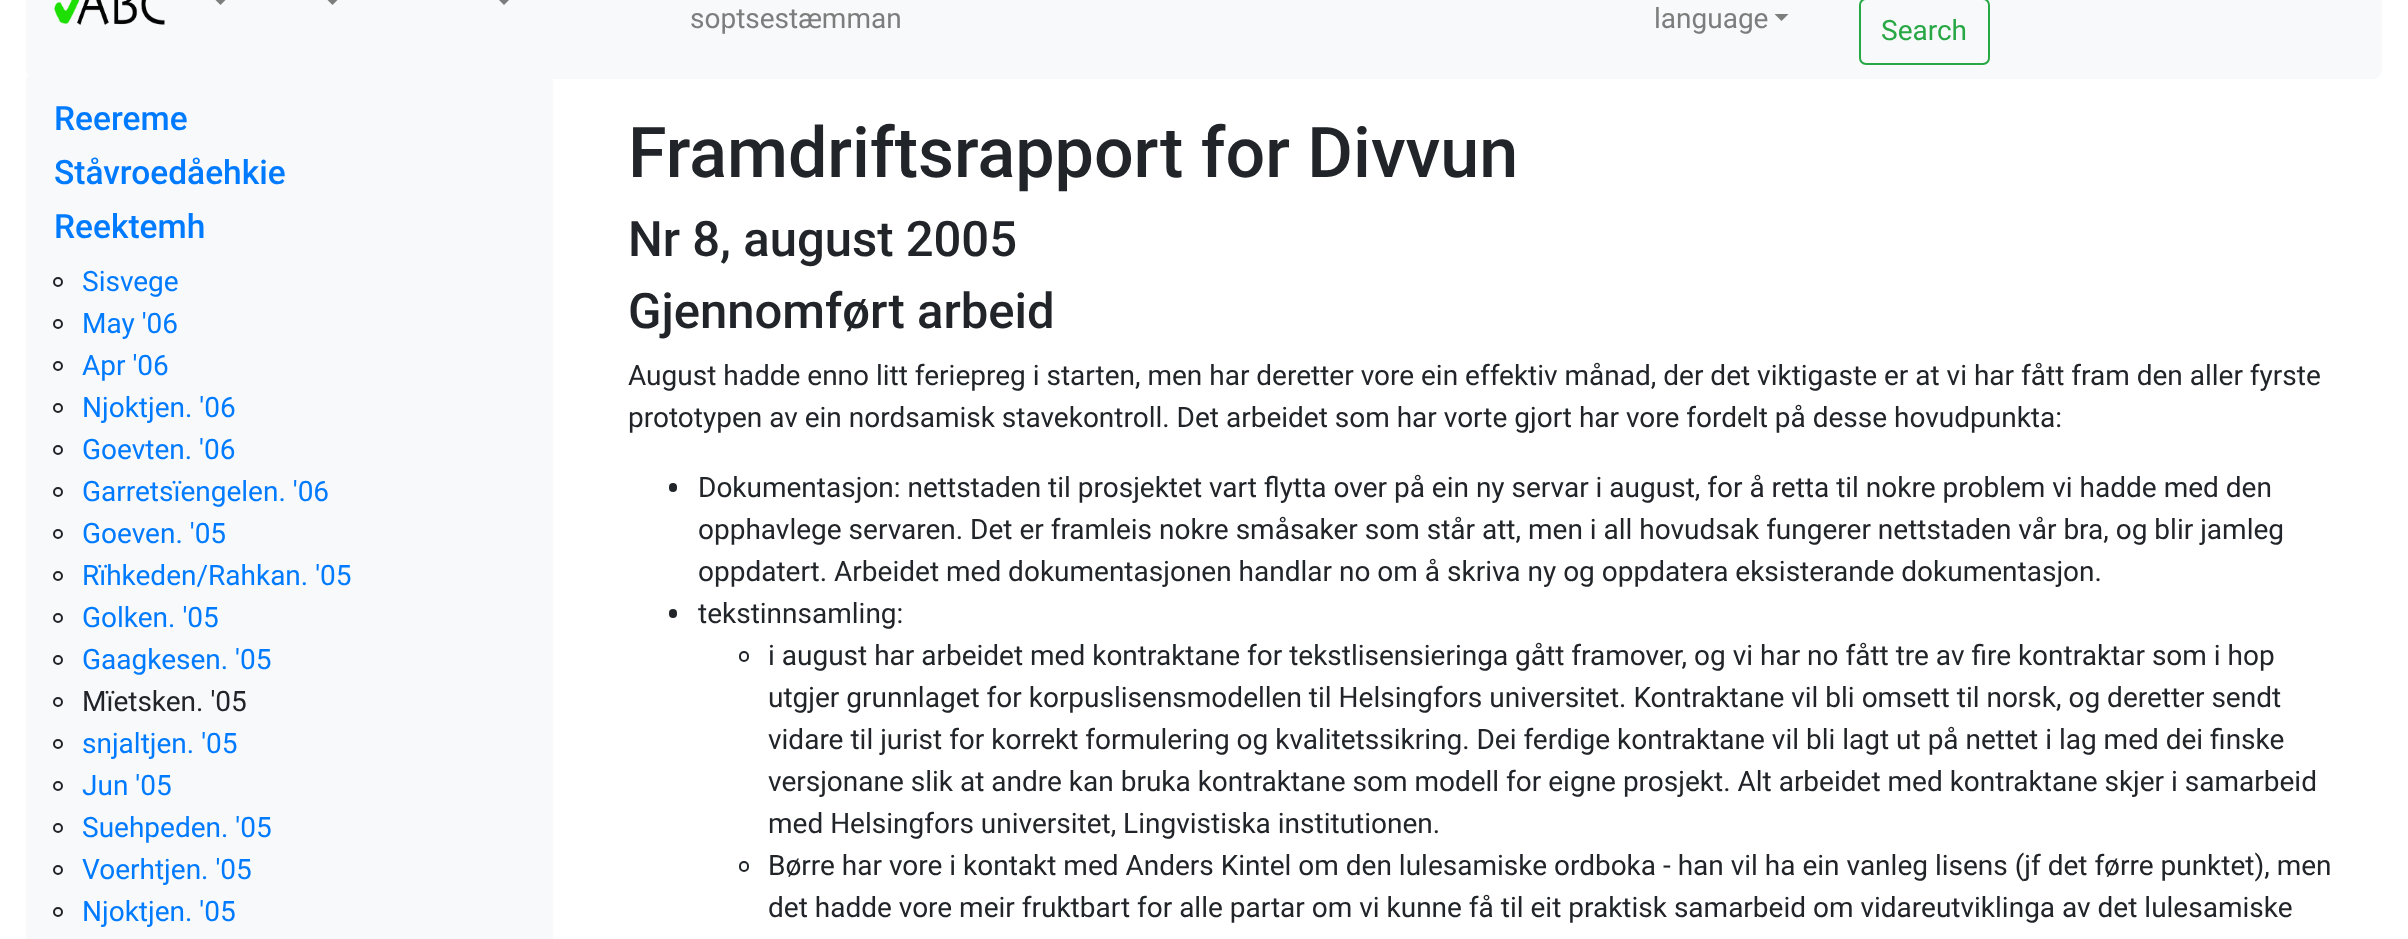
async function draw(canvas) {
  canvas.width = 2408
  canvas.height = 939
  const ctx = canvas.getContext('2d')
  ctx.miterLimit = 4
  ctx.fontKerning = 'normal'
  async function loadImage(src) {
    const img = new Image()
    img.src = src
    await img.decode()
    return img
  }

  ctx.fillStyle = '#fff'
  ctx.fillRect(0, 0, 2408, 939)
  ctx.fillStyle = '#f8f9fa'
  ctx.beginPath()
  ctx.roundRect(26, -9, 2356, 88, 9)
  ctx.fill()
  ctx.drawImage(await loadImage('image0.png'), 54, 0, 111, 25)
  ctx.fillStyle = '#7c7d7d'
  ctx.beginPath()
  ctx.moveTo(213.5, -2)
  ctx.lineTo(227.5, -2)
  ctx.lineTo(220.5, 5)
  ctx.closePath()
  ctx.fill()
  ctx.beginPath()
  ctx.moveTo(325.5, -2)
  ctx.lineTo(339.5, -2)
  ctx.lineTo(332.5, 5)
  ctx.closePath()
  ctx.fill()
  ctx.beginPath()
  ctx.moveTo(497, -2)
  ctx.lineTo(511, -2)
  ctx.lineTo(504, 5)
  ctx.closePath()
  ctx.fill()
  ctx.font = '28px Roboto'
  ctx.fillText('soptsestæmman', 690, 28)
  ctx.fillText('language', 1654, 28)
  ctx.beginPath()
  ctx.moveTo(1774.5, 14)
  ctx.lineTo(1788.5, 14)
  ctx.lineTo(1781.5, 21)
  ctx.closePath()
  ctx.fill()
  ctx.beginPath()
  ctx.roundRect(1860, -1, 129, 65, 6)
  ctx.strokeStyle = '#28a745'
  ctx.lineWidth = 2
  ctx.stroke()
  ctx.fillStyle = '#28a745'
  ctx.fillText('Search', 1881, 40)
  ctx.fillStyle = '#f8f9fa'
  ctx.fillRect(26, 77, 527, 862)
  ctx.font = '500 33.5px Roboto'
  ctx.fillStyle = '#007bff'
  ctx.fillText('Reereme', 54, 130)
  ctx.fillText('Ståvroedåehkie', 54, 184)
  ctx.fillText('Reektemh', 54, 238)
  ctx.beginPath()
  ctx.arc(58, 282, 4, 0, 2 * Math.PI)
  ctx.strokeStyle = '#212529'
  ctx.stroke()
  ctx.font = '28px Roboto'
  ctx.fillText('Sisvege', 82, 291)
  ctx.beginPath()
  ctx.arc(58, 324, 4, 0, 2 * Math.PI)
  ctx.stroke()
  ctx.fillText('May \'06', 82, 333)
  ctx.beginPath()
  ctx.arc(58, 366, 4, 0, 2 * Math.PI)
  ctx.stroke()
  ctx.fillText('Apr \'06', 82, 375)
  ctx.beginPath()
  ctx.arc(58, 408, 4, 0, 2 * Math.PI)
  ctx.stroke()
  ctx.fillText('Njoktjen. \'06', 82, 417)
  ctx.beginPath()
  ctx.arc(58, 450, 4, 0, 2 * Math.PI)
  ctx.stroke()
  ctx.fillText('Goevten. \'06', 82, 459)
  ctx.beginPath()
  ctx.arc(58, 492, 4, 0, 2 * Math.PI)
  ctx.stroke()
  ctx.fillText('Garretsïengelen. \'06', 82, 501)
  ctx.beginPath()
  ctx.arc(58, 534, 4, 0, 2 * Math.PI)
  ctx.stroke()
  ctx.fillText('Goeven. \'05', 82, 543)
  ctx.beginPath()
  ctx.arc(58, 576, 4, 0, 2 * Math.PI)
  ctx.stroke()
  ctx.fillText('Rïhkeden/Rahkan. \'05', 82, 585)
  ctx.beginPath()
  ctx.arc(58, 618, 4, 0, 2 * Math.PI)
  ctx.stroke()
  ctx.fillText('Golken. \'05', 82, 627)
  ctx.beginPath()
  ctx.arc(58, 660, 4, 0, 2 * Math.PI)
  ctx.stroke()
  ctx.fillText('Gaagkesen. \'05', 82, 669)
  ctx.beginPath()
  ctx.arc(58, 702, 4, 0, 2 * Math.PI)
  ctx.stroke()
  ctx.fillStyle = '#212529'
  ctx.fillText('Mïetsken. \'05', 82, 711)
  ctx.beginPath()
  ctx.arc(58, 744, 4, 0, 2 * Math.PI)
  ctx.stroke()
  ctx.fillStyle = '#007bff'
  ctx.fillText('snjaltjen. \'05', 82, 753)
  ctx.beginPath()
  ctx.arc(58, 786, 4, 0, 2 * Math.PI)
  ctx.stroke()
  ctx.fillText('Jun \'05', 82, 795)
  ctx.beginPath()
  ctx.arc(58, 828, 4, 0, 2 * Math.PI)
  ctx.stroke()
  ctx.fillText('Suehpeden. \'05', 82, 837)
  ctx.beginPath()
  ctx.arc(58, 870, 4, 0, 2 * Math.PI)
  ctx.stroke()
  ctx.fillText('Voerhtjen. \'05', 82, 879)
  ctx.beginPath()
  ctx.arc(58, 912, 4, 0, 2 * Math.PI)
  ctx.stroke()
  ctx.fillText('Njoktjen. \'05', 82, 921)
  ctx.font = '500 70px Roboto'
  ctx.fillStyle = '#212529'
  ctx.fillText('Framdriftsrapport for Divvun', 628, 177)
  ctx.font = '500 49px Roboto'
  ctx.fillText('Nr 8, august 2005', 628, 256)
  ctx.fillText('Gjennomført arbeid', 628, 328)
  ctx.font = '28px Roboto'
  ctx.fillText('August hadde enno litt feriepreg i starten, men har deretter vore ein effektiv månad, der det viktigaste er at vi har fått fram den aller fyrste', 628, 385)
  ctx.fillText('prototypen av ein nordsamisk stavekontroll. Det arbeidet som har vorte gjort har vore fordelt på desse hovudpunkta:', 628, 427)
  ctx.beginPath()
  ctx.roundRect(669, 483, 8, 9, 4)
  ctx.fill()
  ctx.fillText('Dokumentasjon: nettstaden til prosjektet vart flytta over på ein ny servar i august, for å retta til nokre problem vi hadde med den', 698, 497)
  ctx.fillText('opphavlege servaren. Det er framleis nokre småsaker som står att, men i all hovudsak fungerer nettstaden vår bra, og blir jamleg', 698, 539)
  ctx.fillText('oppdatert. Arbeidet med dokumentasjonen handlar no om å skriva ny og oppdatera eksisterande dokumentasjon.', 698, 581)
  ctx.beginPath()
  ctx.roundRect(669, 609, 8, 9, 4)
  ctx.fill()
  ctx.fillText('tekstinnsamling:', 698, 623)
  ctx.beginPath()
  ctx.roundRect(740, 652, 8, 9, 4)
  ctx.stroke()
  ctx.fillText('i august har arbeidet med kontraktane for tekstlisensieringa gått framover, og vi har no fått tre av fire kontraktar som i hop', 768, 665)
  ctx.fillText('utgjer grunnlaget for korpuslisensmodellen til Helsingfors universitet. Kontraktane vil bli omsett til norsk, og deretter sendt', 768, 707)
  ctx.fillText('vidare til jurist for korrekt formulering og kvalitetssikring. Dei ferdige kontraktane vil bli lagt ut på nettet i lag med dei finske', 768, 749)
  ctx.fillText('versjonane slik at andre kan bruka kontraktane som modell for eigne prosjekt. Alt arbeidet med kontraktane skjer i samarbeid', 768, 791)
  ctx.fillText('med Helsingfors universitet, Lingvistiska institutionen.', 768, 833)
  ctx.beginPath()
  ctx.roundRect(740, 862, 8, 9, 4)
  ctx.stroke()
  ctx.fillText('Børre har vore i kontakt med Anders Kintel om den lulesamiske ordboka - han vil ha ein vanleg lisens (jf det førre punktet), men', 768, 875)
  ctx.fillText('det hadde vore meir fruktbart for alle partar om vi kunne få til eit praktisk samarbeid om vidareutviklinga av det lulesamiske', 768, 917)
}

draw(document.querySelector('canvas'))
